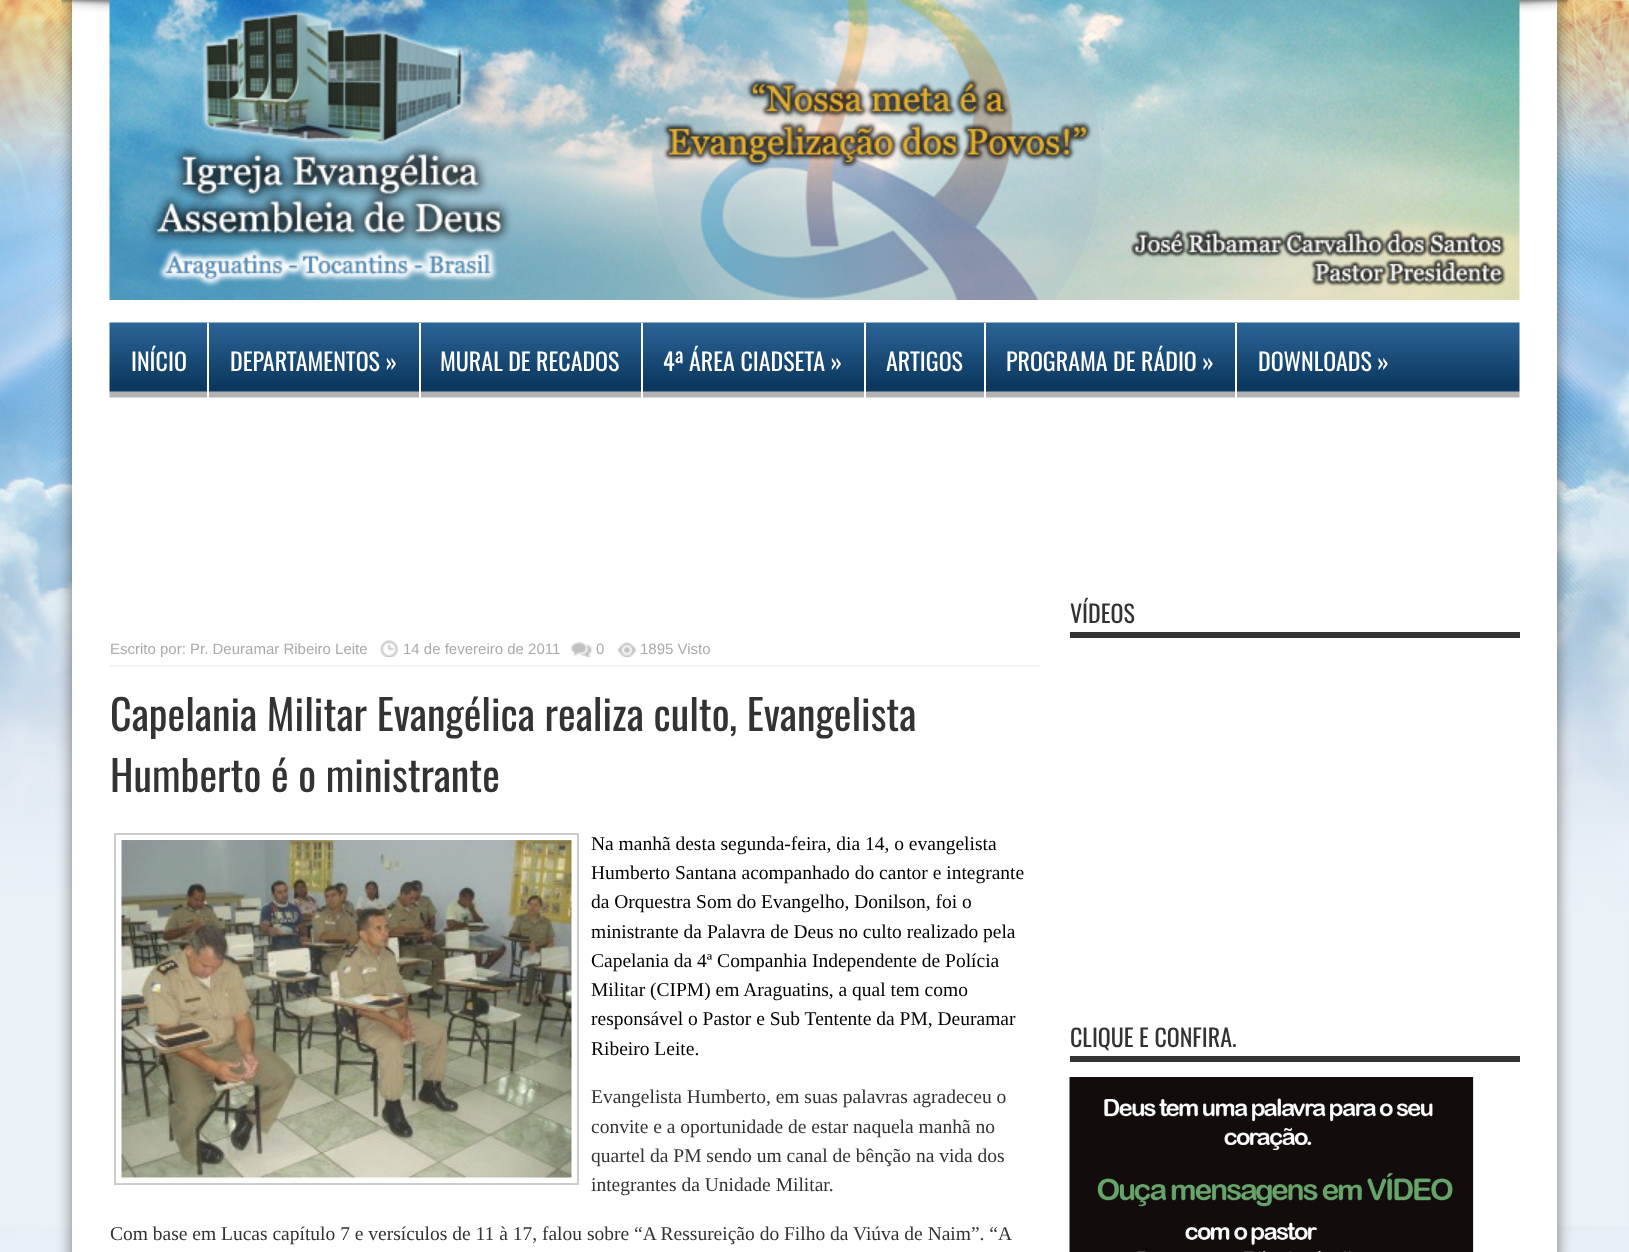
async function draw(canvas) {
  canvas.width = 1629
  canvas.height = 1252
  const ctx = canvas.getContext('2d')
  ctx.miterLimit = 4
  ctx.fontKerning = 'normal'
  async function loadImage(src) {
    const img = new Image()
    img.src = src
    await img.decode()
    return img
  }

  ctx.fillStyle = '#fff'
  ctx.fillRect(0, 0, 1629, 1252)
  ctx.drawImage(await loadImage('image0.png'), 0, 0, 1629, 1252)
  ctx.drawImage(await loadImage('image1.png'), 0, 0, 1629, 1226)
  ctx.fillStyle = '#00000080'
  ctx.filter = 'blur(7.5px)'
  ctx.beginPath()
  ctx.rect(72, 0, 1485, 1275)
  ctx.fill()
  ctx.filter = 'none'
  ctx.fillStyle = '#fff'
  ctx.fillRect(72, 0, 1485, 1252)
  ctx.drawImage(await loadImage('image2.png'), 61, 0, 1507, 12)
  ctx.drawImage(await loadImage('image3.png'), 109, 0, 1411, 300)
  ctx.drawImage(await loadImage('image4.png'), 109, 322, 1411, 76)
  ctx.font = '24px Oswald'
  ctx.fillText('INÍCIO', 131, 371)
  ctx.fillRect(207, 323, 2, 75)
  ctx.fillText('DEPARTAMENTOS »', 230, 371)
  ctx.fillRect(419, 323, 2, 75)
  ctx.fillText('MURAL DE RECADOS', 440, 371)
  ctx.fillRect(641, 323, 2, 75)
  ctx.fillText('4ª ÁREA CIADSETA »', 663, 371)
  ctx.fillRect(864, 323, 2, 75)
  ctx.fillText('ARTIGOS', 886, 371)
  ctx.fillRect(984, 323, 2, 75)
  ctx.fillText('PROGRAMA DE RÁDIO »', 1006, 371)
  ctx.fillRect(1235, 323, 2, 75)
  ctx.fillText('DOWNLOADS »', 1258, 371)
  ctx.fillStyle = '#f2f2f2'
  ctx.fillRect(110, 665, 930, 2)
  ctx.font = '15px Liberation Sans'
  ctx.fillStyle = '#aaa'
  ctx.fillText('Escrito por: Pr. Deuramar Ribeiro Leite', 110, 654)
  ctx.drawImage(await loadImage('image5.png'), 379, 640, 20, 17)
  ctx.fillText('14 de fevereiro de 2011', 403, 654)
  ctx.drawImage(await loadImage('image6.png'), 571, 641, 21, 16)
  ctx.fillText('0', 596, 654)
  ctx.drawImage(await loadImage('image7.png'), 617, 642, 20, 15)
  ctx.fillText('1895 Visto', 640, 654)
  ctx.font = '42px Oswald'
  ctx.fillStyle = '#333'
  ctx.fillText('Capelania Militar Evangélica realiza culto, Evangelista', 110, 731)
  ctx.fillText('Humberto é o ministrante', 110, 792)
  ctx.strokeStyle = '#cbcdcc'
  ctx.lineWidth = 2
  ctx.strokeRect(115, 834, 463, 350)
  ctx.drawImage(await loadImage('image8.png'), 121, 840, 451, 338)
  ctx.font = '19.5px Liberation Serif'
  ctx.fillStyle = '#000'
  ctx.fillText('Na manhã desta segunda-feira, dia 14, o evangelista', 591, 850)
  ctx.fillText('Humberto Santana acompanhado do cantor e integrante', 591, 879)
  ctx.fillText('da Orquestra Som do Evangelho, Donilson, foi o', 591, 908)
  ctx.fillText('ministrante da Palavra de Deus no culto realizado pela', 591, 938)
  ctx.fillText('Capelania da 4ª Companhia Independente de Polícia', 591, 967)
  ctx.fillText('Militar (CIPM) em Araguatins, a qual tem como', 591, 996)
  ctx.fillText('responsável o Pastor e Sub Tentente da PM, Deuramar', 591, 1025)
  ctx.fillText('Ribeiro Leite.', 591, 1055)
  ctx.fillStyle = '#333'
  ctx.fillText('Evangelista Humberto, em suas palavras agradeceu o', 591, 1103)
  ctx.fillText('convite e a oportunidade de estar naquela manhã no', 591, 1133)
  ctx.fillText('quartel da PM sendo um canal de bênção na vida dos', 591, 1162)
  ctx.fillText('integrantes da Unidade Militar.', 591, 1191)
  ctx.fillText('Com base em Lucas capítulo 7 e versículos de 11 à 17, falou sobre “A Ressureição do Filho da Viúva de Naim”. “A', 110, 1240)
  ctx.fillRect(1070, 632, 450, 6)
  ctx.font = '24px Oswald'
  ctx.fillText('VÍDEOS', 1070, 623)
  ctx.fillRect(1070, 1056, 450, 6)
  ctx.fillText('CLIQUE E CONFIRA.', 1070, 1047)
  ctx.drawImage(await loadImage('image9.png'), 1069, 1077, 405, 175)
}

draw(document.querySelector('canvas'))
